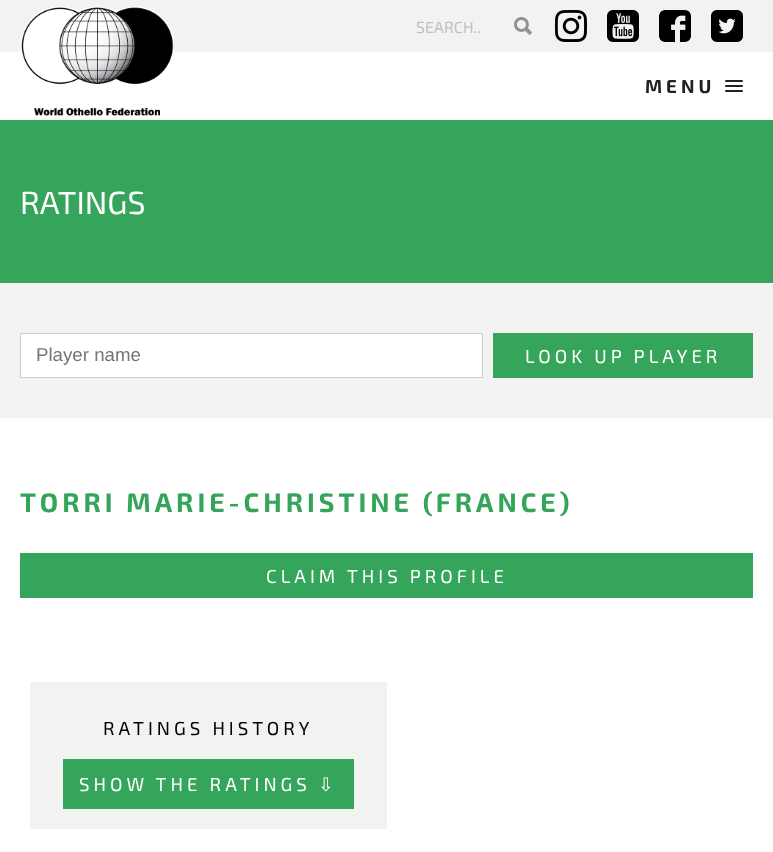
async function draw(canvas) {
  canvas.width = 773
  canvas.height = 852
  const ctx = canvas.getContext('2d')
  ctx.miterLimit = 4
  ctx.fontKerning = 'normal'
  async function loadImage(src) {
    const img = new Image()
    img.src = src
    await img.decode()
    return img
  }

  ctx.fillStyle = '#fff'
  ctx.fillRect(0, 0, 773, 852)
  ctx.fillStyle = '#f2f2f2'
  ctx.fillRect(0, 0, 773, 52)
  ctx.drawImage(await loadImage('image0.png'), 20, 6, 154, 110)
  ctx.font = '16px "Exo 2"'
  ctx.fillStyle = '#c0c0c0'
  ctx.fillText('SEARCH..', 416, 33)
  ctx.drawImage(await loadImage('image1.png'), 514, 17, 18, 18)
  ctx.drawImage(await loadImage('image2.png'), 555, 10, 32, 32)
  ctx.drawImage(await loadImage('image3.png'), 607, 10, 32, 32)
  ctx.drawImage(await loadImage('image4.png'), 659, 10, 32, 32)
  ctx.drawImage(await loadImage('image5.png'), 711, 10, 32, 32)
  ctx.letterSpacing = '4px'
  ctx.font = 'bold 18.7px "Exo 2"'
  ctx.fillStyle = '#222'
  ctx.fillText('MENU', 645, 93)
  ctx.beginPath()
  ctx.roundRect(725, 80, 18, 2, 1)
  ctx.fill()
  ctx.beginPath()
  ctx.roundRect(725, 85, 18, 2, 1)
  ctx.fill()
  ctx.beginPath()
  ctx.roundRect(725, 90, 18, 2, 1)
  ctx.fill()
  ctx.fillStyle = '#35a55b'
  ctx.fillRect(0, 120, 773, 163)
  ctx.letterSpacing = '0px'
  ctx.font = '32px "Exo 2"'
  ctx.fillStyle = '#fff'
  ctx.fillText('RATINGS', 20, 214)
  ctx.fillStyle = '#f3f3f3'
  ctx.fillRect(0, 283, 773, 135)
  ctx.fillStyle = '#fff'
  ctx.beginPath()
  ctx.rect(20.5, 333.5, 462, 44)
  ctx.fill()
  ctx.strokeStyle = '#ccc'
  ctx.stroke()
  ctx.font = '18.7px Liberation Sans'
  ctx.fillStyle = '#757575'
  ctx.fillText('Player name', 36, 361)
  ctx.fillStyle = '#35a55b'
  ctx.fillRect(493, 333, 260, 45)
  ctx.letterSpacing = '4px'
  ctx.font = '18.7px "Exo 2"'
  ctx.fillStyle = '#fff'
  ctx.fillText('LOOK UP PLAYER', 525, 363)
  ctx.font = 'bold 26.7px "Exo 2"'
  ctx.fillStyle = '#35a55b'
  ctx.fillText('TORRI MARIE-CHRISTINE (FRANCE)', 20, 512)
  ctx.fillRect(20, 553, 733, 45)
  ctx.font = '18.7px "Exo 2"'
  ctx.fillStyle = '#fff'
  ctx.fillText('CLAIM THIS PROFILE', 266, 583)
  ctx.fillStyle = '#f2f2f2'
  ctx.fillRect(30, 682, 357, 147)
  ctx.fillStyle = '#000'
  ctx.fillText('RATINGS HISTORY', 103, 735)
  ctx.fillStyle = '#35a55b'
  ctx.fillRect(63, 759, 291, 50)
  ctx.fillStyle = '#fff'
  ctx.fillText('SHOW THE RATINGS', 79, 791)
  ctx.font = '18.7px DejaVu Sans'
  ctx.fillText('⇩', 318, 791)
}

draw(document.querySelector('canvas'))
